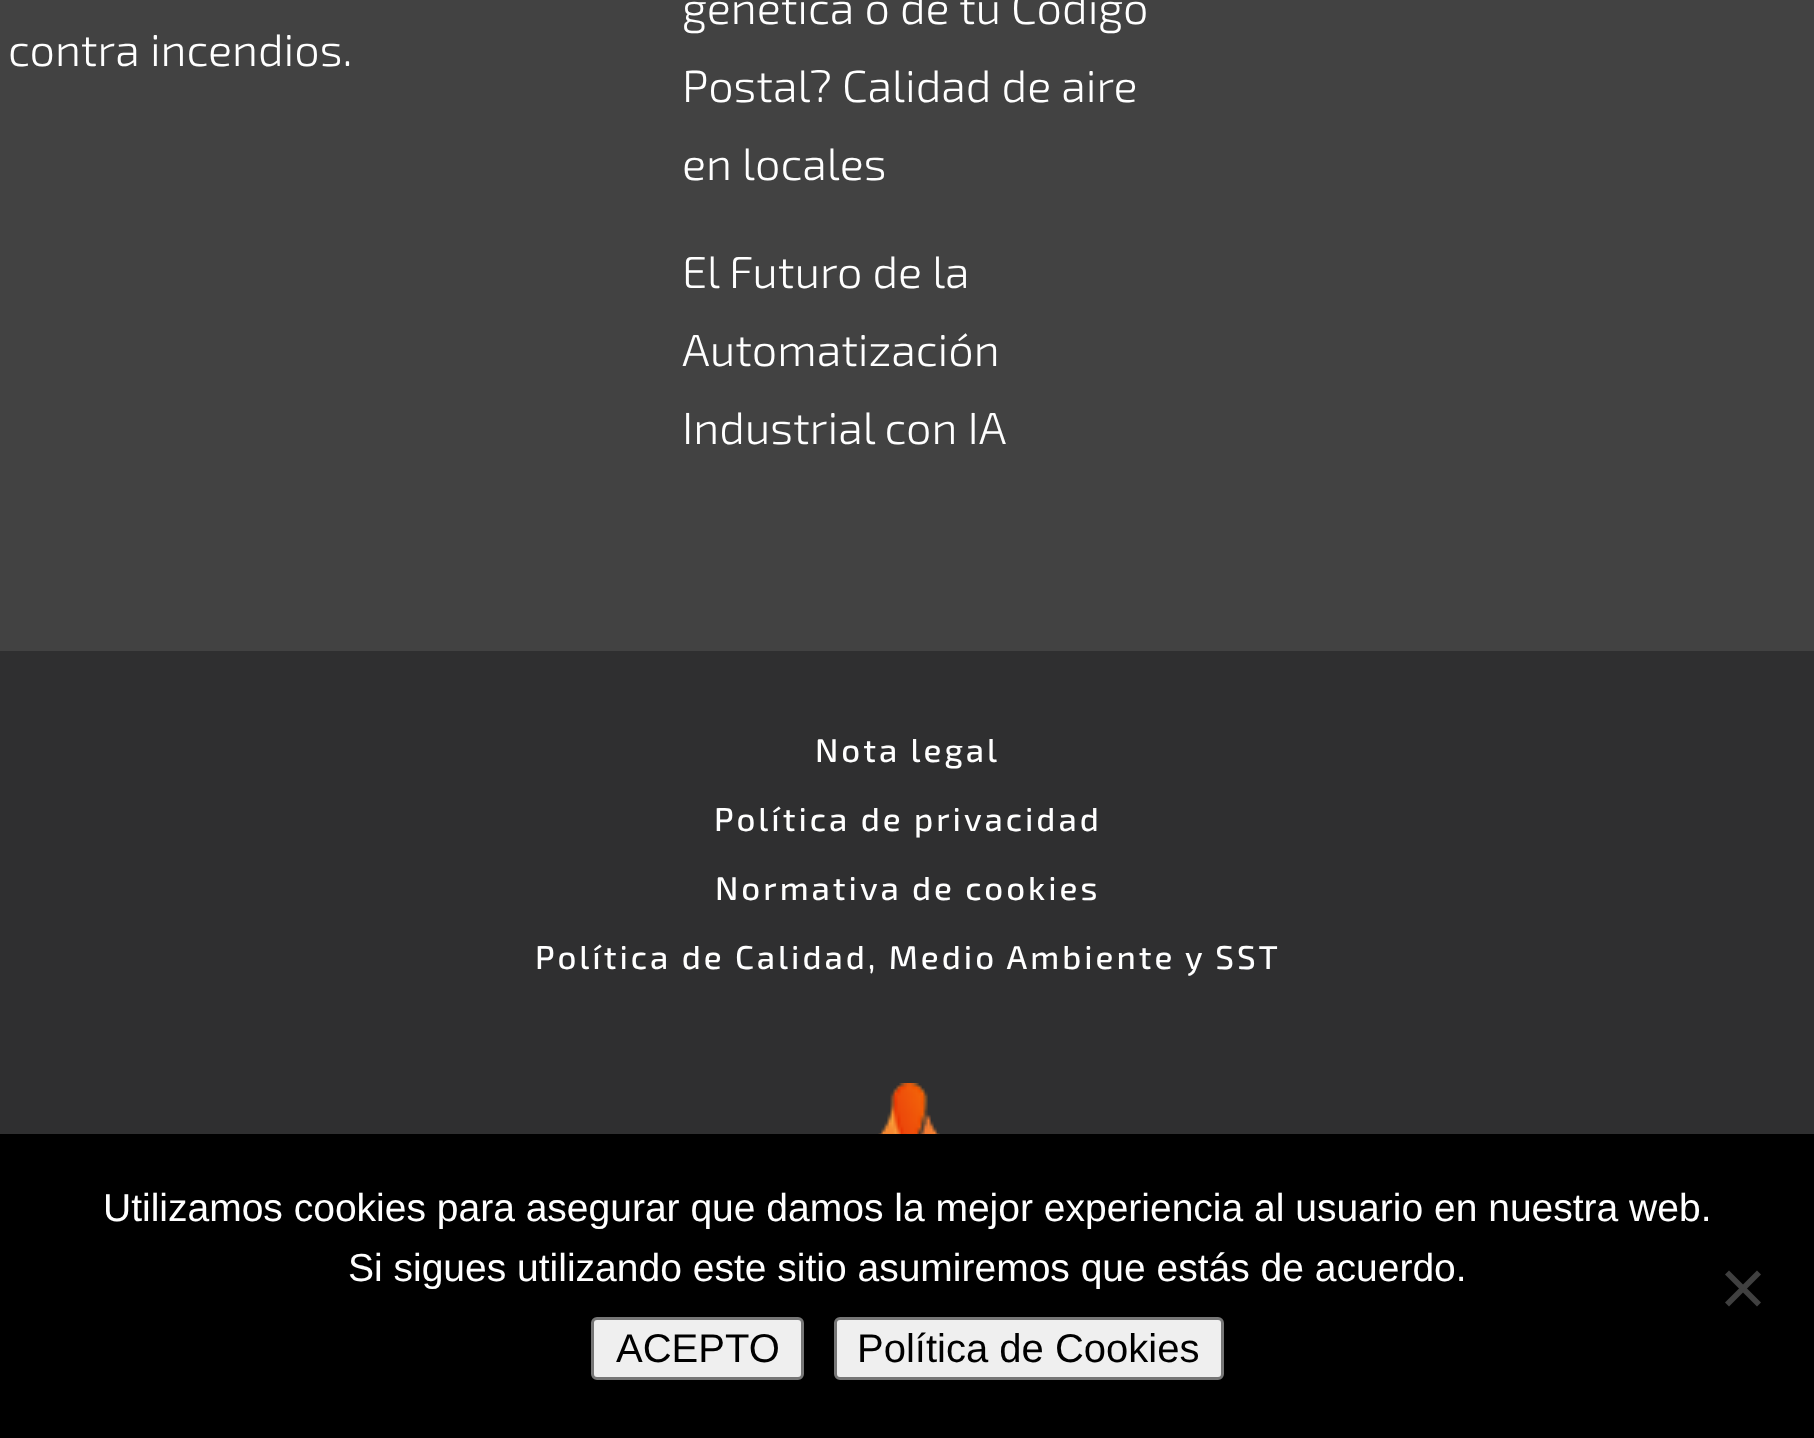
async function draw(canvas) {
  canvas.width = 1814
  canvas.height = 1438
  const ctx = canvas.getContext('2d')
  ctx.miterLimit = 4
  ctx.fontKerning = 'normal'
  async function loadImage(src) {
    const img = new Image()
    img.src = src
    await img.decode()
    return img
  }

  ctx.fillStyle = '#2f2f30'
  ctx.fillRect(0, 0, 1814, 1438)
  ctx.fillStyle = '#424242'
  ctx.fillRect(0, 0, 1814, 651)
  ctx.font = '300 45px "Exo 2"'
  ctx.fillStyle = '#fff'
  ctx.fillText('contra incendios.', 8, 66)
  ctx.fillText('genética o de tu Código', 682, 24)
  ctx.fillText('Postal? Calidad de aire', 682, 102)
  ctx.fillText('en locales', 682, 180)
  ctx.fillText('El Futuro de la', 682, 288)
  ctx.fillText('Automatización', 682, 366)
  ctx.fillText('Industrial con IA', 682, 444)
  ctx.letterSpacing = '3px'
  ctx.font = '500 33px "Exo 2"'
  ctx.fillText('Nota legal', 815, 762)
  ctx.fillText('Política de privacidad', 714, 831)
  ctx.fillText('Normativa de cookies', 715, 900)
  ctx.fillText('Política de Calidad, Medio Ambiente y SST', 535, 969)
  ctx.drawImage(await loadImage('image0.png'), 878, 1083, 62, 51)
  ctx.fillStyle = '#000'
  ctx.fillRect(0, 1134, 1814, 304)
  ctx.letterSpacing = '0px'
  ctx.font = '39px Liberation Sans'
  ctx.fillStyle = '#fff'
  ctx.fillText('Utilizamos cookies para asegurar que damos la mejor experiencia al usuario en nuestra web.', 103, 1221)
  ctx.fillText('Si sigues utilizando este sitio asumiremos que estás de acuerdo.', 348, 1281)
  ctx.fillStyle = '#404040'
  ctx.beginPath()
  ctx.moveTo(1757, 1270.5)
  ctx.lineTo(1761, 1274.5)
  ctx.lineTo(1729, 1306.5)
  ctx.lineTo(1725, 1302.5)
  ctx.closePath()
  ctx.fill()
  ctx.beginPath()
  ctx.moveTo(1725, 1274.5)
  ctx.lineTo(1729, 1270.5)
  ctx.lineTo(1761, 1302.5)
  ctx.lineTo(1757, 1306.5)
  ctx.closePath()
  ctx.fill()
  ctx.fillStyle = '#efefef'
  ctx.beginPath()
  ctx.roundRect(592.5, 1318.5, 210, 60, 4.5)
  ctx.fill()
  ctx.strokeStyle = '#767676'
  ctx.lineWidth = 3
  ctx.stroke()
  ctx.font = '40px Liberation Sans'
  ctx.fillStyle = '#000'
  ctx.fillText('ACEPTO', 616, 1362)
  ctx.fillStyle = '#efefef'
  ctx.beginPath()
  ctx.roundRect(835.5, 1318.5, 387, 60, 4.5)
  ctx.fill()
  ctx.stroke()
  ctx.fillStyle = '#000'
  ctx.fillText('Política de Cookies', 857, 1362)
}

draw(document.querySelector('canvas'))
